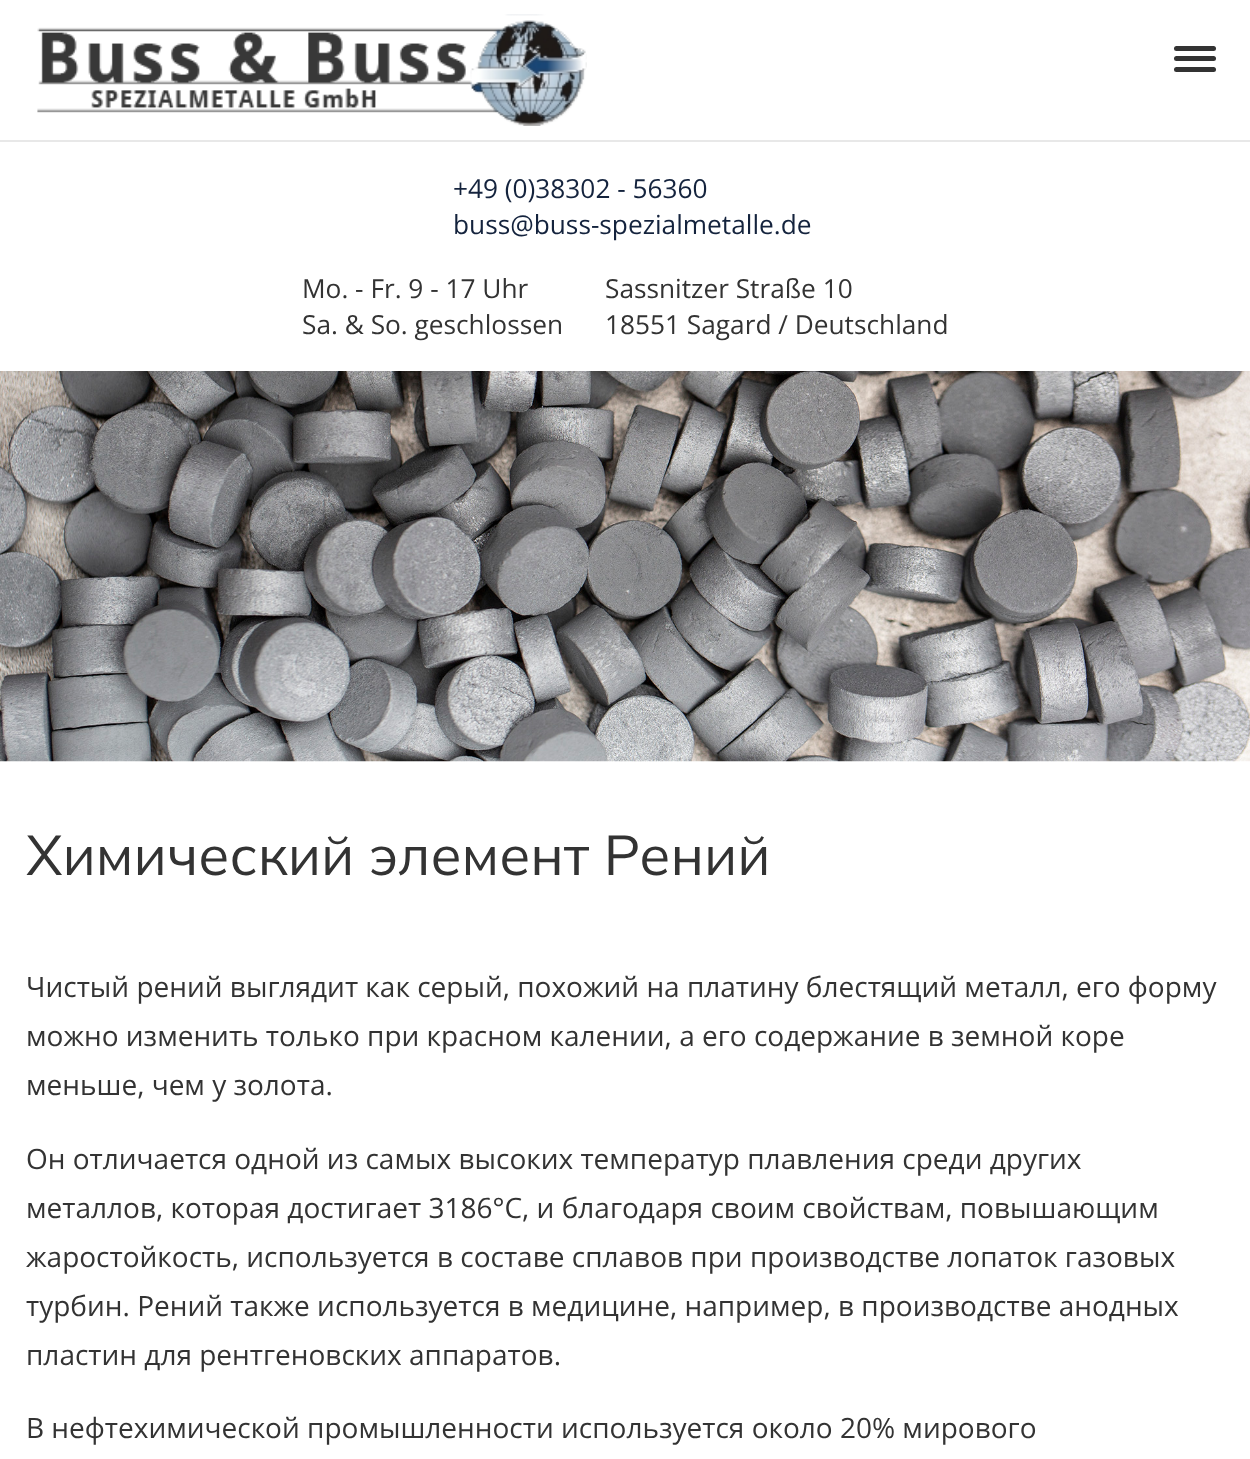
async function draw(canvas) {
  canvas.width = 1250
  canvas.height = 1459
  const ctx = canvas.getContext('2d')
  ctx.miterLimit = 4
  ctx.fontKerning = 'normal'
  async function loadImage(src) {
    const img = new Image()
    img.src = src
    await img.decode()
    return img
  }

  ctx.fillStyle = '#fff'
  ctx.fillRect(0, 0, 1250, 1459)
  ctx.drawImage(await loadImage('image0.png'), 37, 14, 550, 112)
  ctx.fillStyle = '#e8e8e8'
  ctx.fillRect(0, 140, 1250, 2)
  ctx.fillStyle = '#333'
  ctx.beginPath()
  ctx.roundRect(1174, 46, 42, 5, 2.5)
  ctx.fill()
  ctx.beginPath()
  ctx.roundRect(1174, 56, 42, 5, 2.5)
  ctx.fill()
  ctx.beginPath()
  ctx.roundRect(1174, 67, 42, 5, 2.5)
  ctx.fill()
  ctx.font = '26.25px Open Sans'
  ctx.fillStyle = '#14233d'
  ctx.fillText('+49 (0)38302 - 56360', 453, 198)
  ctx.fillText('buss@buss-spezialmetalle.de', 453, 234)
  ctx.fillStyle = '#333'
  ctx.fillText('Mo. - Fr. 9 - 17 Uhr', 302, 298)
  ctx.fillText('Sa. & So. geschlossen', 302, 334)
  ctx.fillText('Sassnitzer Straße 10', 605, 298)
  ctx.fillText('18551 Sagard / Deutschland', 605, 334)
  ctx.drawImage(await loadImage('image1.png'), 0, 371, 1250, 391)
  ctx.font = '56px Mulish'
  ctx.fillText('Химический элемент Рений', 26, 875)
  ctx.font = '28px Open Sans'
  ctx.fillText('Чистый рений выглядит как серый, похожий на платину блестящий металл, его форму', 26, 997)
  ctx.fillText('можно изменить только при красном калении, а его содержание в земной коре', 26, 1046)
  ctx.fillText('меньше, чем у золота.', 26, 1095)
  ctx.fillText('Он отличается одной из самых высоких температур плавления среди других', 26, 1169)
  ctx.fillText('металлов, которая достигает 3186°C, и благодаря своим свойствам, повышающим', 26, 1218)
  ctx.fillText('жаростойкость, используется в составе сплавов при производстве лопаток газовых', 26, 1267)
  ctx.fillText('турбин. Рений также используется в медицине, например, в производстве анодных', 26, 1316)
  ctx.fillText('пластин для рентгеновских аппаратов.', 26, 1365)
  ctx.fillText('В нефтехимической промышленности используется около 20% мирового', 26, 1438)
}

draw(document.querySelector('canvas'))
